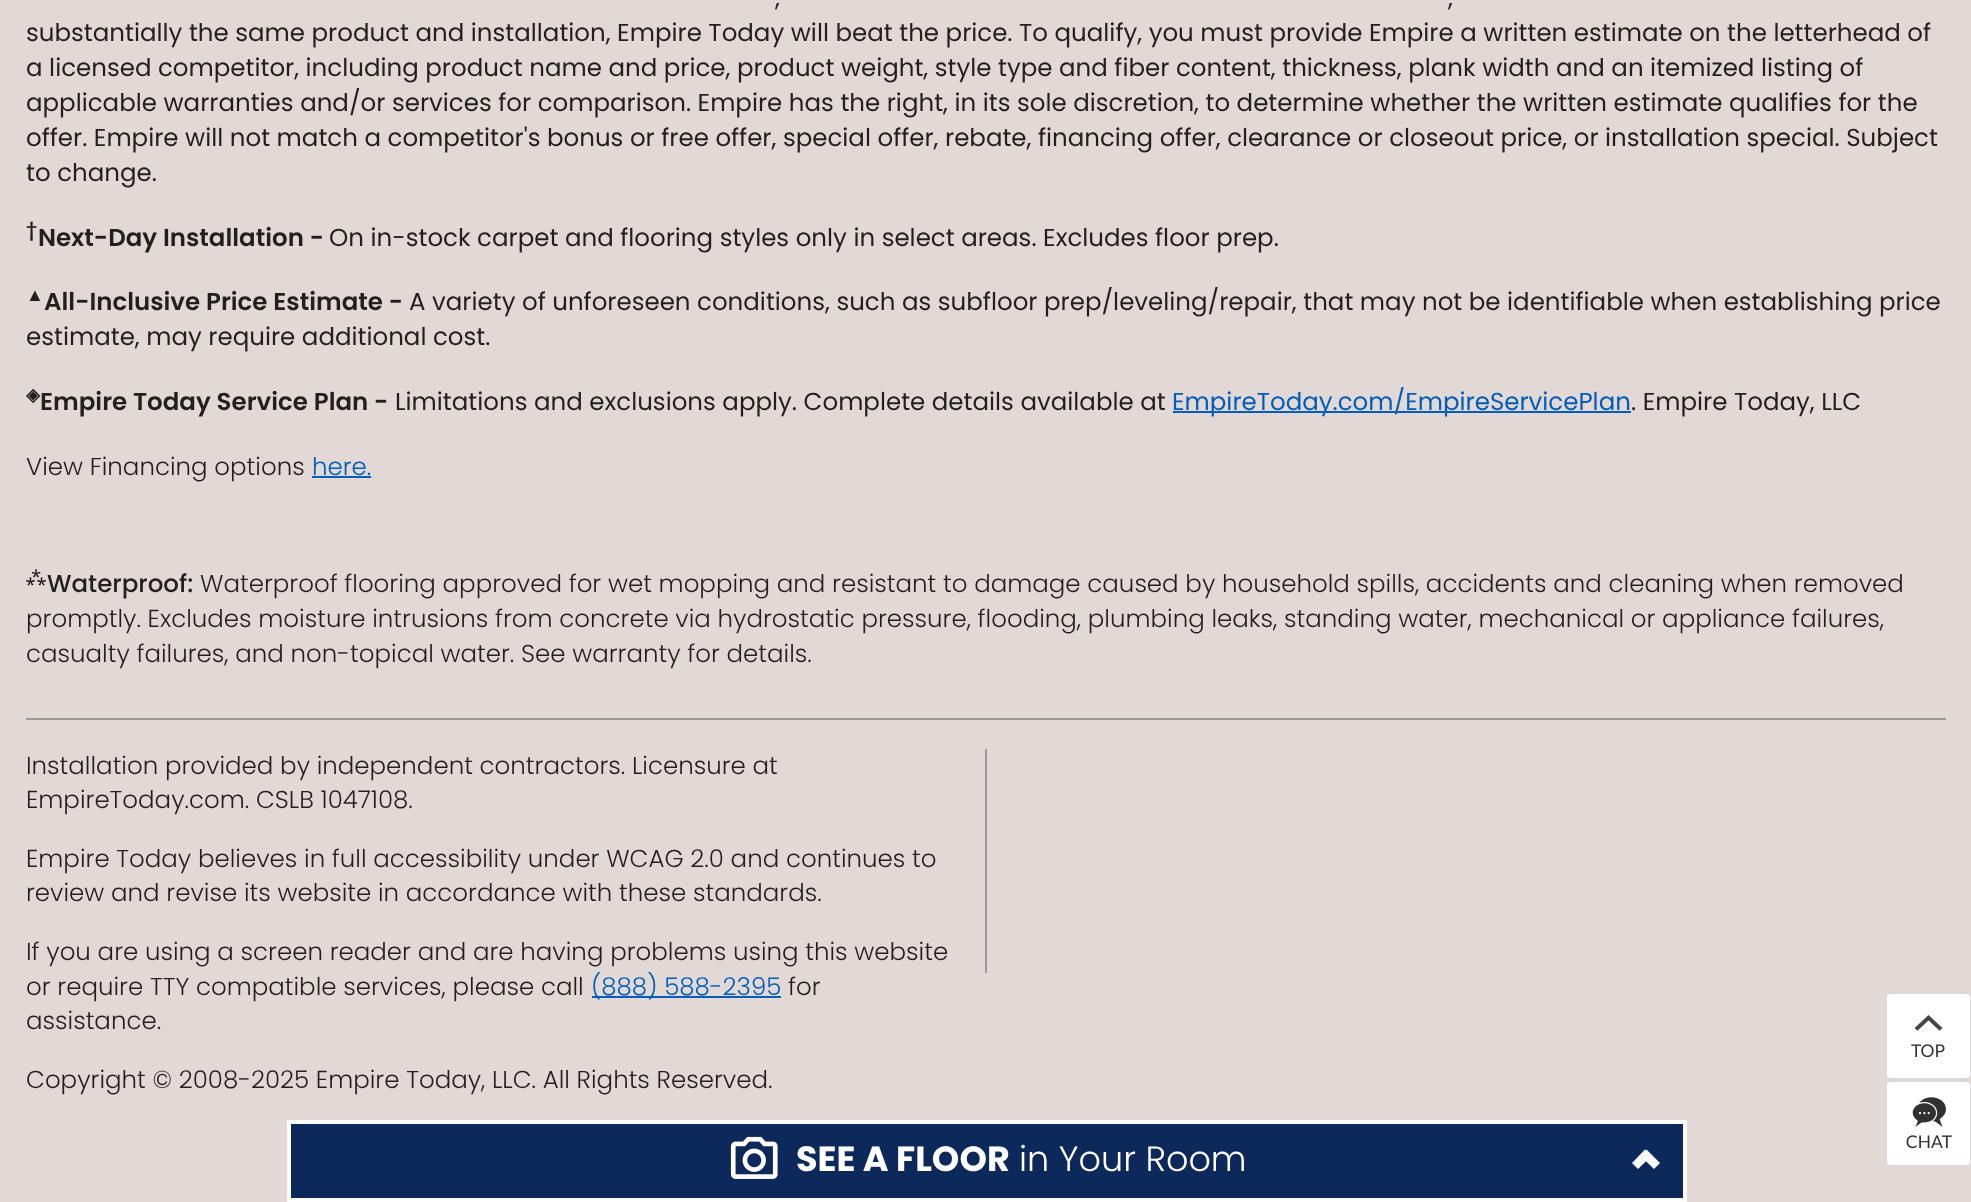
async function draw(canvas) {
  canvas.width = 1971
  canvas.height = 1202
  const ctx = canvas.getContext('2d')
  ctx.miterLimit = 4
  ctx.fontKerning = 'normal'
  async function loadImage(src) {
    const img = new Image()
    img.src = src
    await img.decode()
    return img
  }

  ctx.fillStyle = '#e2d8d6'
  ctx.fillRect(0, 0, 1971, 1202)
  ctx.font = '24.5px Poppins'
  ctx.fillStyle = '#231f20'
  ctx.fillText(',', 775, 6)
  ctx.fillText(',', 1448, 6)
  ctx.fillText('substantially the same product and installation, Empire Today will beat the price. To qualify, you must provide Empire a written estimate on the letterhead of', 26, 41)
  ctx.fillText('a licensed competitor, including product name and price, product weight, style type and fiber content, thickness, plank width and an itemized listing of', 26, 76)
  ctx.fillText('applicable warranties and/or services for comparison. Empire has the right, in its sole discretion, to determine whether the written estimate qualifies for the', 26, 111)
  ctx.fillText('offer. Empire will not match a competitor\'s bonus or free offer, special offer, rebate, financing offer, clearance or closeout price, or installation special. Subject', 26, 146)
  ctx.fillText('to change.', 26, 181)
  ctx.font = '600 18px Poppins'
  ctx.fillText('†', 26, 236)
  ctx.font = '600 24.5px Poppins'
  ctx.fillText('Next-Day Installation -', 38, 246)
  ctx.font = '24.5px Poppins'
  ctx.fillText('On in-stock carpet and flooring styles only in select areas. Excludes floor prep.', 329, 246)
  ctx.font = 'bold 18px Liberation Sans'
  ctx.fillText('▲', 26, 301)
  ctx.font = '600 24.5px Poppins'
  ctx.fillText('All-Inclusive Price Estimate -', 44, 310)
  ctx.font = '24.5px Poppins'
  ctx.fillText('A variety of unforeseen conditions, such as subfloor prep/leveling/repair, that may not be identifiable when establishing price', 409, 310)
  ctx.fillText('estimate, may require additional cost.', 26, 345)
  ctx.font = 'bold 18px DejaVu Sans'
  ctx.fillText('◈', 26, 401)
  ctx.font = '600 24.5px Poppins'
  ctx.fillText('Empire Today Service Plan -', 40, 410)
  ctx.font = '24.5px Poppins'
  ctx.fillText('Limitations and exclusions apply. Complete details available at', 395, 410)
  ctx.fillStyle = '#005db9'
  ctx.fillRect(1173, 411, 458, 2)
  ctx.fillText('EmpireToday.com/EmpireServicePlan', 1172, 410)
  ctx.fillStyle = '#231f20'
  ctx.fillText('. Empire Today, LLC', 1631, 410)
  ctx.fillStyle = '#999'
  ctx.fillRect(26, 718, 1920, 2)
  ctx.font = '300 24.5px Poppins'
  ctx.fillStyle = '#231f20'
  ctx.fillText('View Financing options', 26, 475)
  ctx.fillStyle = '#005db9'
  ctx.fillText('here.', 312, 475)
  ctx.fillRect(312, 476, 59, 2)
  ctx.font = '500 18px Noto Sans'
  ctx.fillStyle = '#231f20'
  ctx.fillText('⁂', 26, 583)
  ctx.font = '500 24.5px Poppins'
  ctx.fillText('Waterproof:', 47, 592)
  ctx.font = '300 24.5px Poppins'
  ctx.fillText('Waterproof flooring approved for wet mopping and resistant to damage caused by household spills, accidents and cleaning when removed', 200, 592)
  ctx.fillText('promptly. Excludes moisture intrusions from concrete via hydrostatic pressure, flooding, plumbing leaks, standing water, mechanical or appliance failures,', 26, 627)
  ctx.fillText('casualty failures, and non-topical water. See warranty for details.', 26, 662)
  ctx.fillText('Installation provided by independent contractors. Licensure at', 26, 774)
  ctx.fillText('EmpireToday.com. CSLB 1047108.', 26, 808)
  ctx.fillText('Empire Today believes in full accessibility under WCAG 2.0 and continues to', 26, 867)
  ctx.fillText('review and revise its website in accordance with these standards.', 26, 901)
  ctx.fillText('If you are using a screen reader and are having problems using this website', 26, 960)
  ctx.fillText('or require TTY compatible services, please call', 26, 995)
  ctx.fillStyle = '#005db9'
  ctx.fillRect(592, 996, 189, 2)
  ctx.fillText('(888) 588-2395', 591, 995)
  ctx.fillStyle = '#231f20'
  ctx.fillText('for', 788, 995)
  ctx.fillText('assistance.', 26, 1029)
  ctx.fillText('Copyright © 2008-2025 Empire Today, LLC. All Rights Reserved.', 26, 1088)
  ctx.fillStyle = '#999'
  ctx.fillRect(985, 749, 2, 224)
  ctx.drawImage(await loadImage('image0.png'), 1885, 992, 86, 88)
  ctx.drawImage(await loadImage('image1.png'), 1885, 1080, 86, 87)
  ctx.fillStyle = '#0d285a'
  ctx.beginPath()
  ctx.rect(289, 1122, 1396, 78)
  ctx.fill()
  ctx.strokeStyle = '#fff'
  ctx.lineWidth = 4
  ctx.stroke()
  ctx.drawImage(await loadImage('image2.png'), 730, 1136, 48, 43)
  ctx.font = 'bold 35px Poppins'
  ctx.fillStyle = '#fff'
  ctx.fillText('SEE A FLOOR', 796, 1171)
  ctx.font = '300 35px Poppins'
  ctx.fillText('in Your Room', 1019, 1171)
  ctx.beginPath()
  ctx.moveTo(1646.5, 1149.5)
  ctx.lineTo(1660, 1163)
  ctx.lineTo(1654, 1169)
  ctx.lineTo(1640.5, 1156)
  ctx.closePath()
  ctx.fill()
  ctx.beginPath()
  ctx.moveTo(1645, 1149.5)
  ctx.lineTo(1651.5, 1156)
  ctx.lineTo(1638, 1169)
  ctx.lineTo(1632, 1163)
  ctx.closePath()
  ctx.fill()
}

draw(document.querySelector('canvas'))
